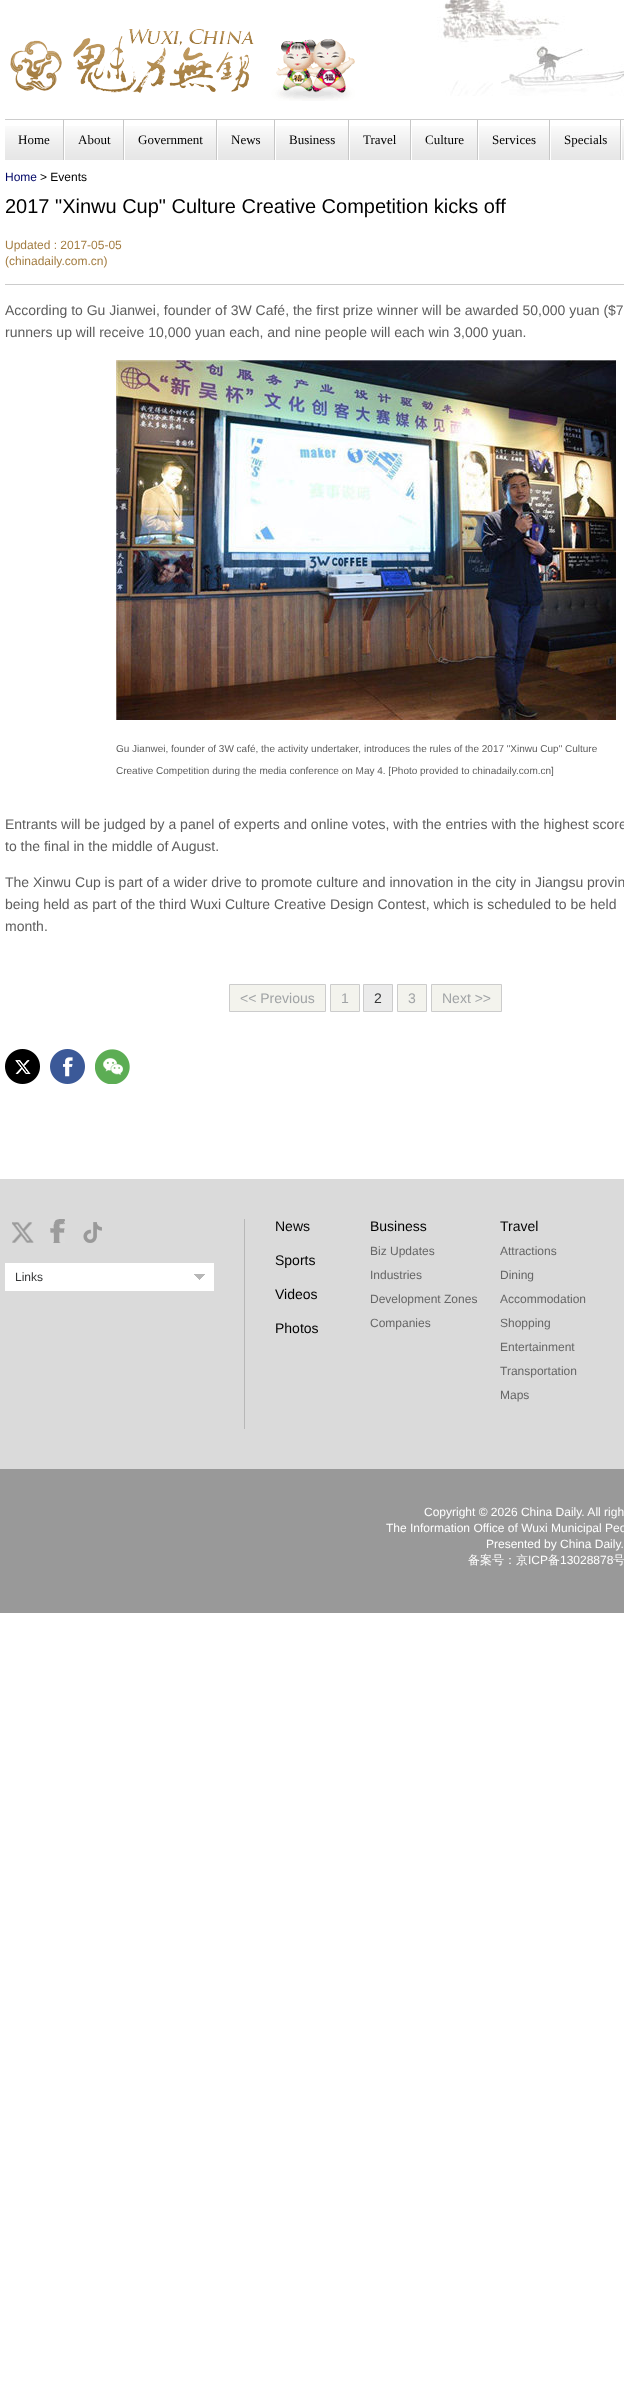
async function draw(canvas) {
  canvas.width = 624
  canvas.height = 2403
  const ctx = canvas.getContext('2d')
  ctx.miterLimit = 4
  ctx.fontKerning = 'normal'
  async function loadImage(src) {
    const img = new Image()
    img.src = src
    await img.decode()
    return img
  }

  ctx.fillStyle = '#fff'
  ctx.fillRect(0, 0, 624, 2403)
  ctx.drawImage(await loadImage('image0.png'), 437, 0, 187, 96)
  ctx.drawImage(await loadImage('image1.png'), 10, 29, 345, 72)
  ctx.drawImage(await loadImage('image2.png'), 5, 126, 619, 34)
  ctx.fillStyle = '#ccc'
  ctx.fillRect(5, 119, 619, 1)
  ctx.fillStyle = '#c7c7c7'
  ctx.fillRect(63, 120, 1, 40)
  ctx.font = '13px Liberation Serif'
  ctx.fillStyle = '#000'
  ctx.fillText('Home', 18, 144)
  ctx.fillStyle = '#c7c7c7'
  ctx.fillRect(123, 120, 1, 40)
  ctx.fillStyle = '#fff'
  ctx.fillRect(64, 120, 1, 40)
  ctx.fillStyle = '#000'
  ctx.fillText('About', 78, 144)
  ctx.fillStyle = '#c7c7c7'
  ctx.fillRect(216, 120, 1, 40)
  ctx.fillStyle = '#fff'
  ctx.fillRect(124, 120, 1, 40)
  ctx.fillStyle = '#000'
  ctx.fillText('Government', 138, 144)
  ctx.fillStyle = '#c7c7c7'
  ctx.fillRect(274, 120, 1, 40)
  ctx.fillStyle = '#fff'
  ctx.fillRect(217, 120, 1, 40)
  ctx.fillStyle = '#000'
  ctx.fillText('News', 231, 144)
  ctx.fillStyle = '#c7c7c7'
  ctx.fillRect(348, 120, 1, 40)
  ctx.fillStyle = '#fff'
  ctx.fillRect(275, 120, 1, 40)
  ctx.fillStyle = '#000'
  ctx.fillText('Business', 289, 144)
  ctx.fillStyle = '#c7c7c7'
  ctx.fillRect(410, 120, 1, 40)
  ctx.fillStyle = '#fff'
  ctx.fillRect(349, 120, 1, 40)
  ctx.fillStyle = '#000'
  ctx.fillText('Travel', 363, 144)
  ctx.fillStyle = '#c7c7c7'
  ctx.fillRect(477, 120, 1, 40)
  ctx.fillStyle = '#fff'
  ctx.fillRect(411, 120, 1, 40)
  ctx.fillStyle = '#000'
  ctx.fillText('Culture', 425, 144)
  ctx.fillStyle = '#c7c7c7'
  ctx.fillRect(549, 120, 1, 40)
  ctx.fillStyle = '#fff'
  ctx.fillRect(478, 120, 1, 40)
  ctx.fillStyle = '#000'
  ctx.fillText('Services', 492, 144)
  ctx.fillStyle = '#c7c7c7'
  ctx.fillRect(620, 120, 1, 40)
  ctx.fillStyle = '#fff'
  ctx.fillRect(550, 120, 1, 40)
  ctx.fillStyle = '#000'
  ctx.fillText('Specials', 564, 144)
  ctx.fillStyle = '#fff'
  ctx.fillRect(621, 120, 1, 40)
  ctx.font = '12px Liberation Sans'
  ctx.fillStyle = '#000666'
  ctx.fillText('Home', 5, 181)
  ctx.fillStyle = '#000'
  ctx.fillText('> Events', 40, 181)
  ctx.font = '20px Liberation Sans'
  ctx.fillText('2017 "Xinwu Cup" Culture Creative Competition kicks off', 5, 213)
  ctx.fillStyle = '#ccc'
  ctx.fillRect(5, 284, 619, 1)
  ctx.font = '12px Liberation Sans'
  ctx.fillStyle = '#a37d42'
  ctx.fillText('Updated : 2017-05-05', 5, 249)
  ctx.fillText('(chinadaily.com.cn)', 5, 265)
  ctx.font = '14px Liberation Sans'
  ctx.fillStyle = '#5d5d5d'
  ctx.fillText('According to Gu Jianwei, founder of 3W Café, the first prize winner will be awarded 50,000 yuan ($7', 5, 315)
  ctx.fillText('runners up will receive 10,000 yuan each, and nine people will each win 3,000 yuan.', 5, 337)
  ctx.drawImage(await loadImage('image3.png'), 116, 360, 500, 360)
  ctx.font = '10px Liberation Sans'
  ctx.fillText('Gu Jianwei, founder of 3W café, the activity undertaker, introduces the rules of the 2017 "Xinwu Cup" Culture', 116, 752)
  ctx.fillText('Creative Competition during the media conference on May 4. [Photo provided to chinadaily.com.cn]', 116, 774)
  ctx.font = '14px Liberation Sans'
  ctx.fillText('Entrants will be judged by a panel of experts and online votes, with the entries with the highest score', 5, 829)
  ctx.fillText('to the final in the middle of August.', 5, 851)
  ctx.fillText('The Xinwu Cup is part of a wider drive to promote culture and innovation in the city in Jiangsu provin', 5, 887)
  ctx.fillText('being held as part of the third Wuxi Culture Creative Design Contest, which is scheduled to be held', 5, 909)
  ctx.fillText('month.', 5, 931)
  ctx.fillStyle = '#f3f3ed'
  ctx.beginPath()
  ctx.rect(229.5, 984.5, 96, 27)
  ctx.fill()
  ctx.strokeStyle = '#ccc'
  ctx.stroke()
  ctx.fillStyle = '#a0a3a5'
  ctx.fillText('<< Previous', 240, 1003)
  ctx.fillStyle = '#f3f3ed'
  ctx.beginPath()
  ctx.rect(330.5, 984.5, 29, 27)
  ctx.fill()
  ctx.stroke()
  ctx.fillStyle = '#a0a3a5'
  ctx.fillText('1', 341, 1003)
  ctx.fillStyle = '#ebebeb'
  ctx.beginPath()
  ctx.rect(363.5, 984.5, 29, 27)
  ctx.fill()
  ctx.stroke()
  ctx.fillStyle = '#363738'
  ctx.fillText('2', 374, 1003)
  ctx.fillStyle = '#f3f3ed'
  ctx.beginPath()
  ctx.rect(397.5, 984.5, 29, 27)
  ctx.fill()
  ctx.stroke()
  ctx.fillStyle = '#a0a3a5'
  ctx.fillText('3', 408, 1003)
  ctx.fillStyle = '#f3f3ed'
  ctx.beginPath()
  ctx.rect(431.5, 984.5, 70, 27)
  ctx.fill()
  ctx.stroke()
  ctx.fillStyle = '#a0a3a5'
  ctx.fillText('Next >>', 442, 1003)
  ctx.drawImage(await loadImage('image4.png'), 5, 1049, 35, 35)
  ctx.drawImage(await loadImage('image5.png'), 50, 1049, 35, 35)
  ctx.drawImage(await loadImage('image6.png'), 95, 1049, 35, 35)
  ctx.fillStyle = '#dadada'
  ctx.fillRect(0, 1179, 624, 290)
  ctx.fillStyle = '#b7b7b7'
  ctx.fillRect(244, 1219, 1, 210)
  ctx.drawImage(await loadImage('image7.png'), 12, 1222, 22, 21)
  ctx.drawImage(await loadImage('image8.png'), 50, 1219, 15, 24)
  ctx.drawImage(await loadImage('image9.png'), 83, 1222, 19, 21)
  ctx.fillStyle = '#fff'
  ctx.fillRect(5, 1263, 209, 28)
  ctx.drawImage(await loadImage('image10.png'), 194, 1274, 11, 6)
  ctx.font = '12px Liberation Sans'
  ctx.fillStyle = '#363738'
  ctx.fillText('Links', 15, 1281)
  ctx.font = '14px Liberation Sans'
  ctx.fillStyle = '#000'
  ctx.fillText('News', 275, 1231)
  ctx.fillText('Sports', 275, 1265)
  ctx.fillText('Videos', 275, 1299)
  ctx.fillText('Photos', 275, 1333)
  ctx.fillText('Business', 370, 1231)
  ctx.font = '12px Liberation Sans'
  ctx.fillStyle = '#666'
  ctx.fillText('Biz Updates', 370, 1255)
  ctx.fillText('Industries', 370, 1279)
  ctx.fillText('Development Zones', 370, 1303)
  ctx.fillText('Companies', 370, 1327)
  ctx.font = '14px Liberation Sans'
  ctx.fillStyle = '#000'
  ctx.fillText('Travel', 500, 1231)
  ctx.font = '12px Liberation Sans'
  ctx.fillStyle = '#666'
  ctx.fillText('Attractions', 500, 1255)
  ctx.fillText('Dining', 500, 1279)
  ctx.fillText('Accommodation', 500, 1303)
  ctx.fillText('Shopping', 500, 1327)
  ctx.fillText('Entertainment', 500, 1351)
  ctx.fillText('Transportation', 500, 1375)
  ctx.fillText('Maps', 500, 1399)
  ctx.fillStyle = '#999'
  ctx.fillRect(0, 1469, 624, 144)
  ctx.fillStyle = '#fff'
  ctx.fillText('Copyright © 2026 China Daily. All righ', 424, 1516)
  ctx.fillText('The Information Office of Wuxi Municipal Peo', 386, 1532)
  ctx.fillText('Presented by China Daily.', 486, 1548)
  ctx.font = '500 12px WenQuanYi Zen Hei'
  ctx.fillText('备案号：京', 468, 1564)
  ctx.font = '12px Liberation Sans'
  ctx.fillText('ICP', 528, 1564)
  ctx.font = '500 12px WenQuanYi Zen Hei'
  ctx.fillText('备', 548, 1564)
  ctx.font = '12px Liberation Sans'
  ctx.fillText('13028878', 560, 1564)
  ctx.font = '500 12px WenQuanYi Zen Hei'
  ctx.fillText('号', 613, 1564)
}

draw(document.querySelector('canvas'))
